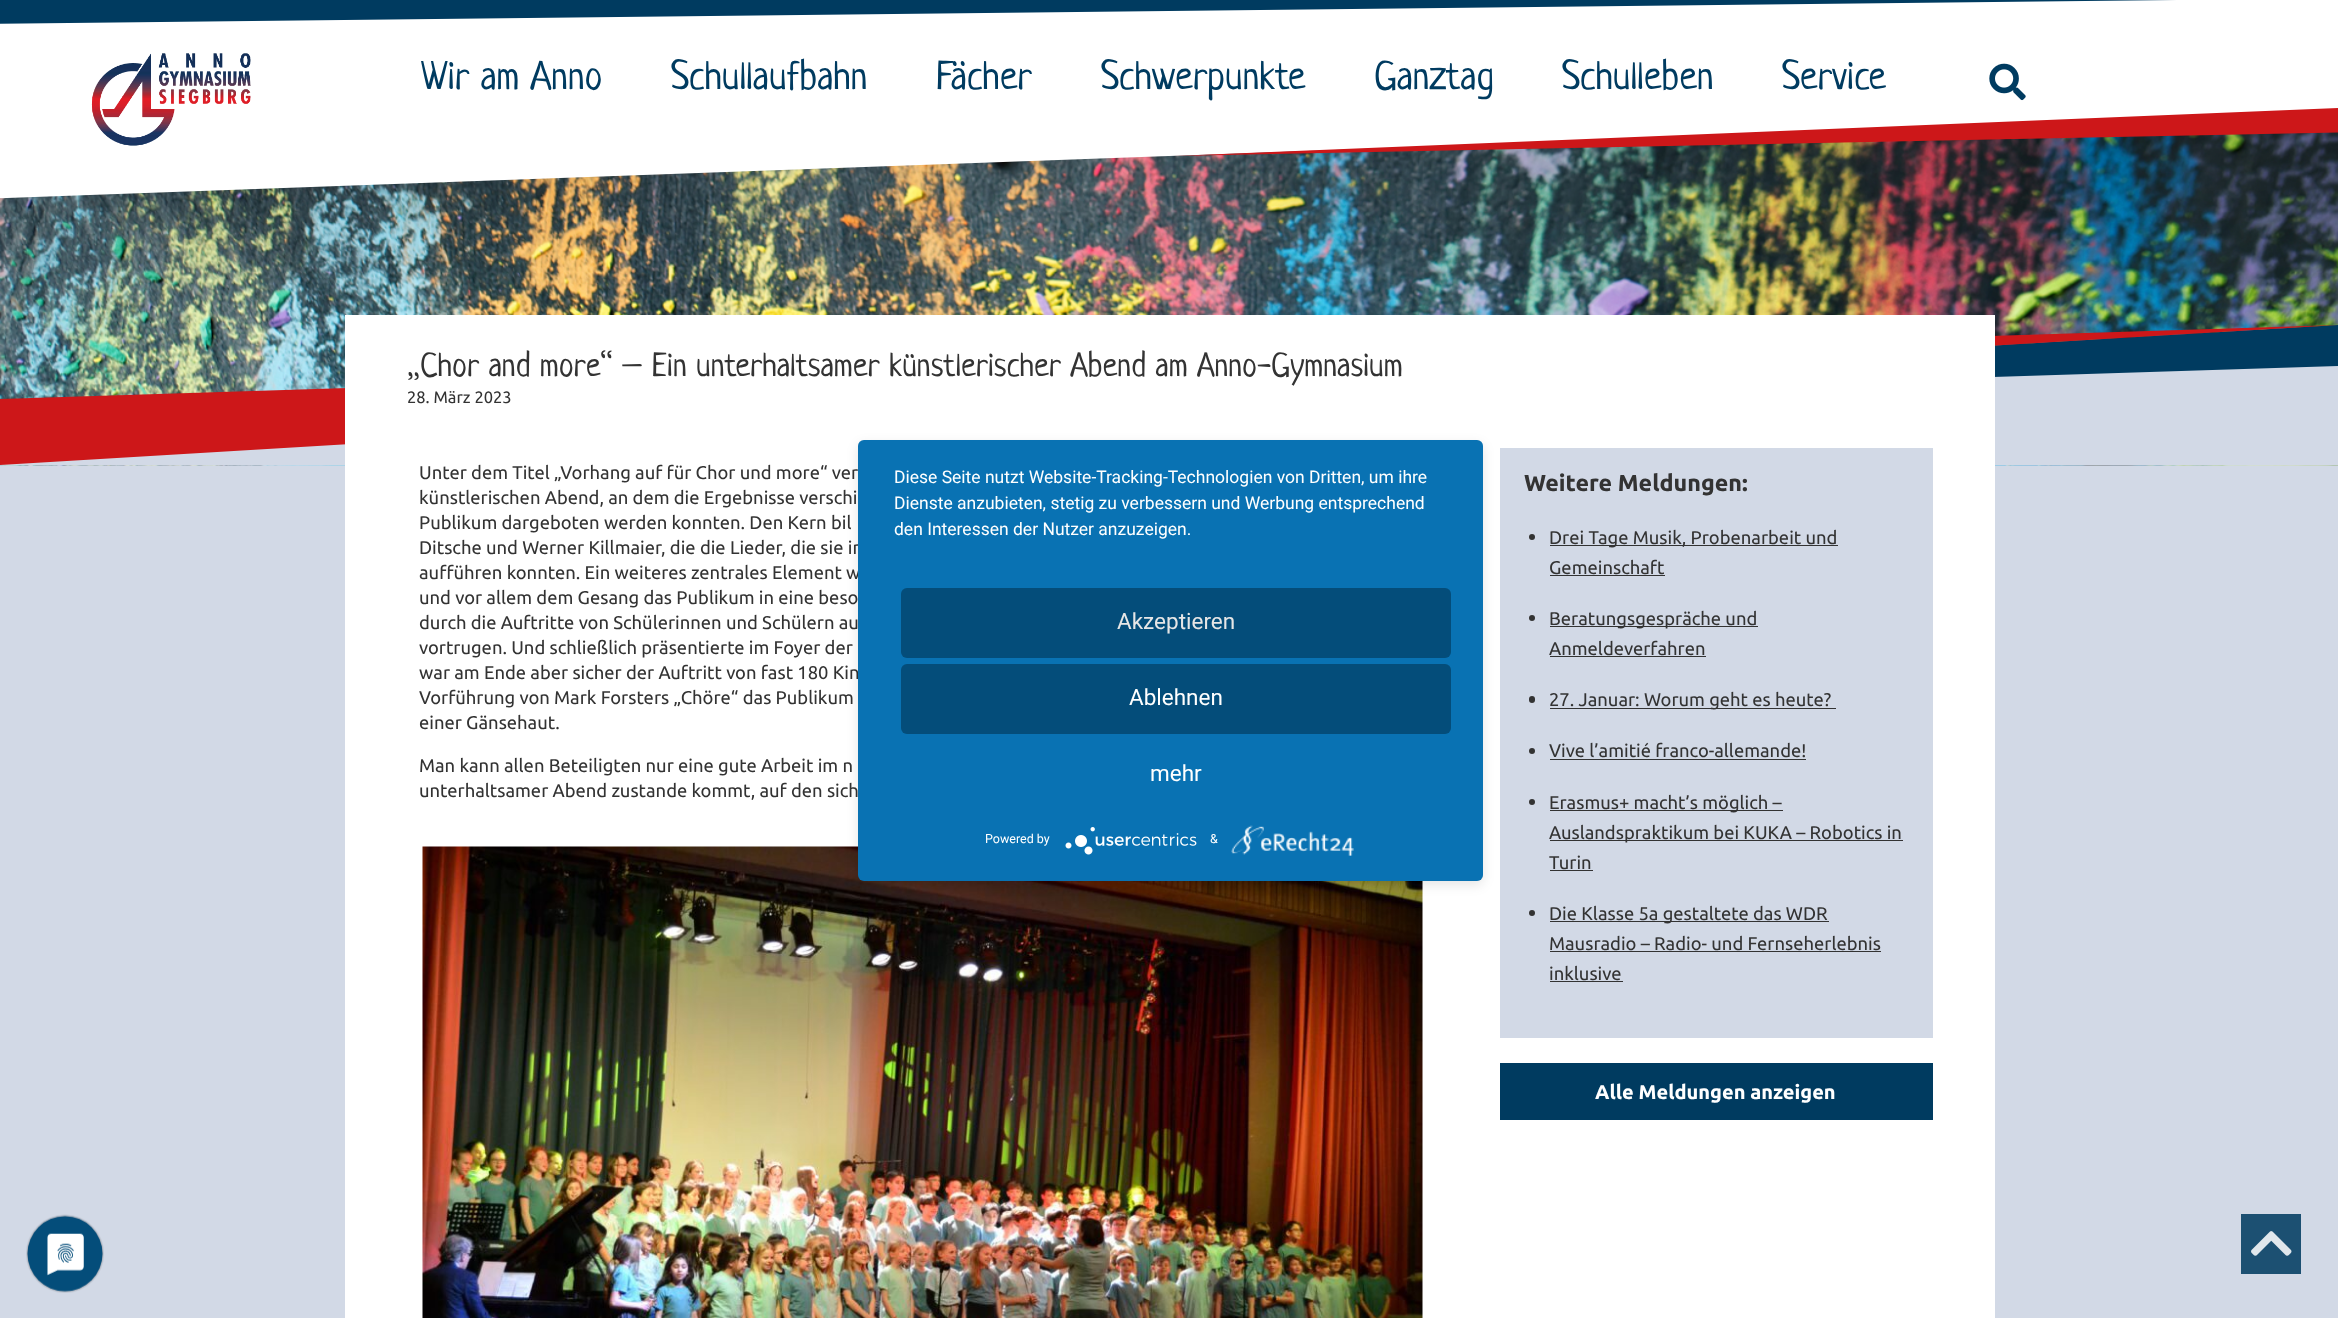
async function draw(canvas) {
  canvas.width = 2338
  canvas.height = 1318
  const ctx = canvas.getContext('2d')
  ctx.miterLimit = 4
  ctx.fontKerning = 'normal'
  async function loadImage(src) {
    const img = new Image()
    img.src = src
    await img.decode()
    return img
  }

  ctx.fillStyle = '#d2d9e6'
  ctx.fillRect(0, 0, 2338, 1318)
  ctx.fillStyle = '#003b60'
  ctx.fillRect(0, 0, 2177, 24)
  ctx.drawImage(await loadImage('image2.png'), 0, 132, 2338, 334)
  ctx.fillStyle = '#fff'
  ctx.beginPath()
  ctx.moveTo(-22, 24)
  ctx.lineTo(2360, -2)
  ctx.lineTo(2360, 113)
  ctx.lineTo(-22, 199)
  ctx.closePath()
  ctx.fill()
  ctx.fillStyle = '#cd1719'
  ctx.beginPath()
  ctx.moveTo(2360, 107)
  ctx.lineTo(1174, 156)
  ctx.lineTo(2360, 132)
  ctx.closePath()
  ctx.fill()
  ctx.drawImage(await loadImage('image0.png'), 91, 53, 160, 93)
  ctx.font = '40px Neucha'
  ctx.fillStyle = '#003b60'
  ctx.fillText('Wir am Anno', 421, 89)
  ctx.fillText('Schullaufbahn', 671, 89)
  ctx.fillText('Fächer', 936, 89)
  ctx.fillText('Schwerpunkte', 1101, 89)
  ctx.fillText('Ganztag', 1374, 89)
  ctx.fillText('Schulleben', 1562, 89)
  ctx.fillText('Service', 1782, 89)
  ctx.drawImage(await loadImage('image1.png'), 1989, 63, 37, 38)
  ctx.save()
  ctx.beginPath()
  ctx.rect(0, 325, 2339, 140)
  ctx.clip()
  ctx.fillStyle = '#d2d9e6'
  ctx.beginPath()
  ctx.moveTo(0, 441)
  ctx.lineTo(0, 470)
  ctx.lineTo(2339, 470)
  ctx.lineTo(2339, 354)
  ctx.closePath()
  ctx.fill()
  ctx.restore()
  ctx.beginPath()
  ctx.moveTo(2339, 325)
  ctx.lineTo(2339, 366)
  ctx.lineTo(863, 413)
  ctx.closePath()
  ctx.fill()
  ctx.fillStyle = '#cd1719'
  ctx.beginPath()
  ctx.moveTo(0, 399)
  ctx.lineTo(0, 465)
  ctx.lineTo(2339, 325)
  ctx.closePath()
  ctx.fill()
  ctx.fillStyle = '#fff'
  ctx.fillRect(345, 315, 1650, 133)
  ctx.font = '33.4px Neucha'
  ctx.fillStyle = '#333'
  ctx.fillText('„Chor and more“ – Ein unterhaltsamer künstlerischer Abend am Anno-Gymnasium', 407, 376)
  ctx.font = '16.5px Ubuntu'
  ctx.fillText('28. März 2023', 407, 403)
  ctx.fillStyle = '#fff'
  ctx.fillRect(345, 448, 1650, 870)
  ctx.font = '18.4px Ubuntu'
  ctx.fillStyle = '#333'
  ctx.fillText('Unter dem Titel „Vorhang auf für Chor und more“ ver', 419, 479)
  ctx.fillText('künstlerischen Abend, an dem die Ergebnisse verschi', 419, 504)
  ctx.fillText('Publikum dargeboten werden konnten. Den Kern bil', 419, 529)
  ctx.fillText('Ditsche und Werner Killmaier, die die Lieder, die sie in', 419, 554)
  ctx.fillText('aufführen konnten. Ein weiteres zentrales Element w', 419, 579)
  ctx.fillText('und vor allem dem Gesang das Publikum in eine beso', 419, 604)
  ctx.fillText('durch die Auftritte von Schülerinnen und Schülern au', 419, 629)
  ctx.fillText('vortrugen. Und schließlich präsentierte im Foyer der', 419, 654)
  ctx.fillText('war am Ende aber sicher der Auftritt von fast 180 Kin', 419, 679)
  ctx.fillText('Vorführung von Mark Forsters „Chöre“ das Publikum', 419, 704)
  ctx.fillText('einer Gänsehaut.', 419, 729)
  ctx.fillText('Man kann allen Beteiligten nur eine gute Arbeit im n', 419, 772)
  ctx.fillText('unterhaltsamer Abend zustande kommt, auf den sich', 419, 797)
  ctx.drawImage(await loadImage('image3.png'), 422, 846, 1001, 472)
  ctx.fillStyle = '#d2d9e6'
  ctx.fillRect(1500, 448, 433, 590)
  ctx.font = 'bold 23.25px Ubuntu'
  ctx.fillStyle = '#333'
  ctx.fillText('Weitere Meldungen:', 1524, 491)
  ctx.beginPath()
  ctx.arc(1532, 537, 3, 0, 2 * Math.PI)
  ctx.fill()
  ctx.fillRect(1550, 545, 288, 1)
  ctx.font = '18.4px Ubuntu'
  ctx.fillText('Drei Tage Musik, Probenarbeit und', 1549, 544)
  ctx.fillText('Gemeinschaft', 1549, 574)
  ctx.fillRect(1550, 575, 115, 1)
  ctx.beginPath()
  ctx.arc(1532, 618, 3, 0, 2 * Math.PI)
  ctx.fill()
  ctx.fillRect(1550, 626, 208, 1)
  ctx.fillText('Beratungsgespräche und', 1549, 625)
  ctx.fillText('Anmeldeverfahren', 1549, 655)
  ctx.fillRect(1550, 656, 156, 1)
  ctx.beginPath()
  ctx.roundRect(1529, 696, 6, 7, 3)
  ctx.fill()
  ctx.fillRect(1550, 708, 286, 1)
  ctx.fillText('27. Januar: Worum geht es heute?', 1549, 706)
  ctx.beginPath()
  ctx.arc(1532, 751, 3, 0, 2 * Math.PI)
  ctx.fill()
  ctx.fillText('Vive l’amitié franco-allemande!', 1549, 757)
  ctx.fillRect(1550, 759, 256, 1)
  ctx.beginPath()
  ctx.arc(1532, 802, 3, 0, 2 * Math.PI)
  ctx.fill()
  ctx.fillRect(1550, 810, 233, 1)
  ctx.fillText('Erasmus+ macht’s möglich –', 1549, 809)
  ctx.fillRect(1550, 840, 353, 1)
  ctx.fillText('Auslandspraktikum bei KUKA – Robotics in', 1549, 839)
  ctx.fillText('Turin', 1549, 869)
  ctx.fillRect(1550, 870, 43, 1)
  ctx.beginPath()
  ctx.arc(1532, 913, 3, 0, 2 * Math.PI)
  ctx.fill()
  ctx.fillRect(1550, 921, 279, 1)
  ctx.fillText('Die Klasse 5a gestaltete das WDR', 1549, 920)
  ctx.fillText('Mausradio – Radio- und Fernseherlebnis', 1549, 950)
  ctx.fillRect(1550, 951, 331, 1)
  ctx.fillText('inklusive', 1549, 980)
  ctx.fillRect(1550, 981, 73, 1)
  ctx.fillStyle = '#003b60'
  ctx.fillRect(1500, 1063, 433, 57)
  ctx.font = 'bold 20px Ubuntu'
  ctx.fillStyle = '#fff'
  ctx.fillText('Alle Meldungen anzeigen', 1595, 1099)
  ctx.fillStyle = '#0000001a'
  ctx.filter = 'blur(6px)'
  ctx.beginPath()
  ctx.roundRect(858, 444, 625, 441, 6)
  ctx.fill()
  ctx.filter = 'none'
  ctx.save()
  ctx.beginPath()
  ctx.roundRect(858, 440, 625, 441, 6)
  ctx.clip()
  ctx.fillStyle = '#0000004d'
  ctx.filter = 'blur(22.5px)'
  ctx.beginPath()
  ctx.rect(858, 448, 625, 441)
  ctx.fill()
  ctx.filter = 'none'
  ctx.restore()
  ctx.fillStyle = '#0972b3'
  ctx.beginPath()
  ctx.roundRect(858, 440, 625, 441, 6)
  ctx.fill()
  ctx.font = '17.5px Roboto'
  ctx.fillStyle = '#fff'
  ctx.fillText('Diese Seite nutzt Website-Tracking-Technologien von Dritten, um ihre', 894, 483)
  ctx.fillText('Dienste anzubieten, stetig zu verbessern und Werbung entsprechend', 894, 509)
  ctx.fillText('den Interessen der Nutzer anzuzeigen.', 894, 535)
  ctx.fillStyle = '#044d7a'
  ctx.beginPath()
  ctx.roundRect(901, 588, 550, 70, 6)
  ctx.fill()
  ctx.font = '22.5px Roboto'
  ctx.fillStyle = '#e6e6e6'
  ctx.fillText('Akzeptieren', 1117, 629)
  ctx.fillStyle = '#044d7a'
  ctx.beginPath()
  ctx.roundRect(901, 664, 550, 70, 6)
  ctx.fill()
  ctx.fillStyle = '#fff'
  ctx.fillText('Ablehnen', 1129, 705)
  ctx.fillText('mehr', 1150, 781)
  ctx.font = '12.5px Roboto'
  ctx.fillText('Powered by', 985, 843)
  ctx.drawImage(await loadImage('image4.png'), 1065, 827, 132, 28)
  ctx.fillText('&', 1210, 843)
  ctx.drawImage(await loadImage('image5.png'), 1231, 825, 123, 31)
  ctx.drawImage(await loadImage('image6.png'), 26, 1214, 78, 79)
  ctx.fillStyle = '#1c5072'
  ctx.fillRect(2241, 1214, 60, 60)
  ctx.drawImage(await loadImage('image7.png'), 2251, 1231, 41, 25)
}

draw(document.querySelector('canvas'))
